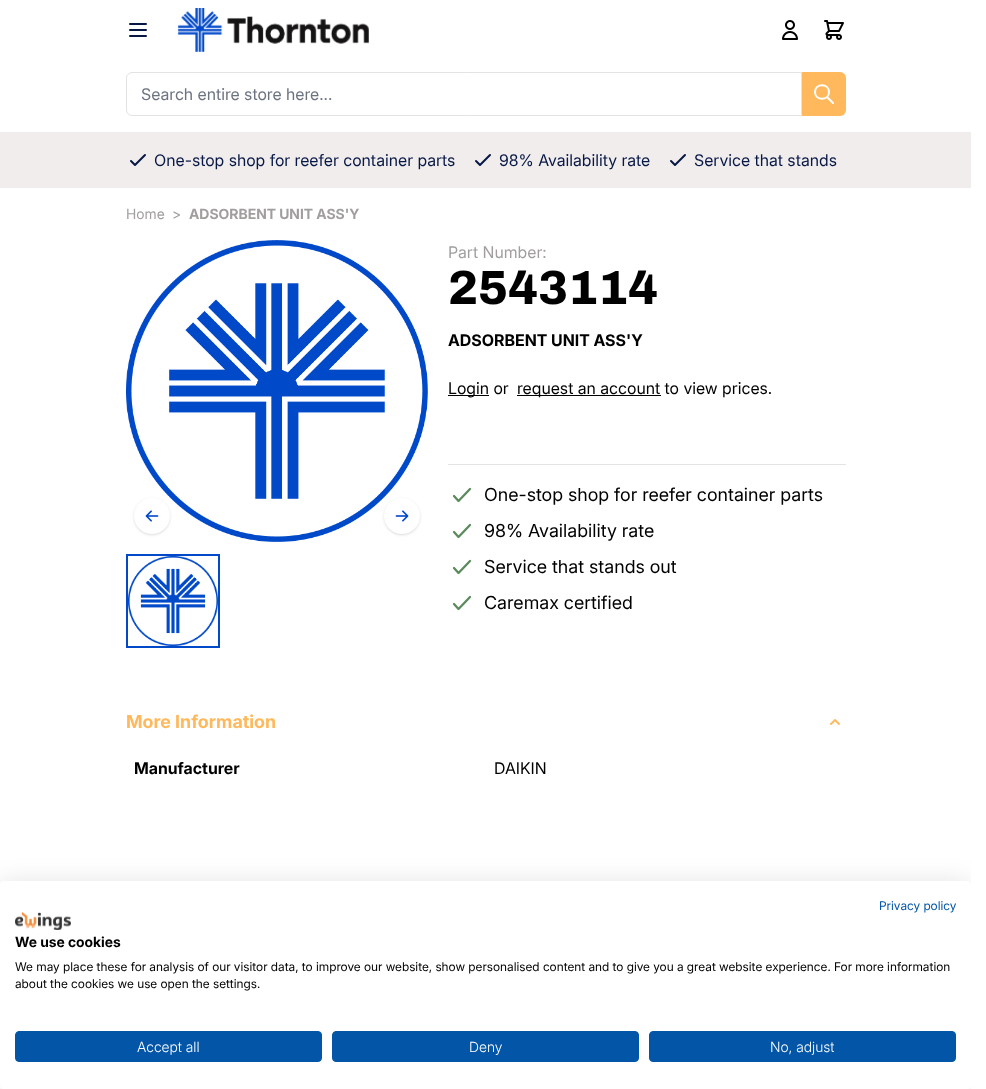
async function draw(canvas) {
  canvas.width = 986
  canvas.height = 1089
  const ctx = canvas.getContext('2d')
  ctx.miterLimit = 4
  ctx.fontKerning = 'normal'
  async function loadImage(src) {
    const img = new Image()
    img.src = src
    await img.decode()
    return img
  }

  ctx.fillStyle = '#fff'
  ctx.fillRect(0, 0, 986, 1089)
  ctx.beginPath()
  ctx.moveTo(130, 24)
  ctx.lineTo(146, 24)
  ctx.moveTo(130, 30)
  ctx.lineTo(146, 30)
  ctx.moveTo(130, 36)
  ctx.lineTo(146, 36)
  ctx.strokeStyle = '#071845'
  ctx.lineWidth = 2
  ctx.lineCap = 'round'
  ctx.lineJoin = 'round'
  ctx.stroke()
  ctx.drawImage(await loadImage('image0.png'), 177, 8, 192, 44)
  ctx.drawImage(await loadImage('image1.png'), 782, 20, 16, 20)
  ctx.drawImage(await loadImage('image2.png'), 824, 20, 20, 20)
  ctx.beginPath()
  ctx.roundRect(126.5, 72.5, 675, 43, [5.5, 0, 0, 5.5])
  ctx.strokeStyle = '#e3e3e3'
  ctx.lineWidth = 1
  ctx.lineJoin = 'miter'
  ctx.stroke()
  ctx.font = '16px Inter'
  ctx.fillStyle = '#6b7280'
  ctx.fillText('Search entire store here...', 141, 100)
  ctx.fillStyle = '#ffb95c'
  ctx.beginPath()
  ctx.roundRect(802, 72, 44, 44, [0, 6, 6, 0])
  ctx.fill()
  ctx.beginPath()
  ctx.moveTo(833, 103)
  ctx.lineTo(827, 97)
  ctx.moveTo(829, 92)
  ctx.bezierCurveTo(829, 101, 815, 101, 815, 92)
  ctx.bezierCurveTo(815, 83, 829, 83, 829, 92)
  ctx.closePath()
  ctx.strokeStyle = '#fff'
  ctx.lineWidth = 2
  ctx.lineJoin = 'round'
  ctx.stroke()
  ctx.fillStyle = '#f2eded'
  ctx.fillRect(0, 132, 971, 56)
  ctx.beginPath()
  ctx.moveTo(131, 161)
  ctx.lineTo(135, 165)
  ctx.lineTo(145, 155)
  ctx.strokeStyle = '#071845'
  ctx.stroke()
  ctx.fillStyle = '#071845'
  ctx.fillText('One-stop shop for reefer container parts', 154, 166)
  ctx.beginPath()
  ctx.moveTo(476, 161)
  ctx.lineTo(480, 165)
  ctx.lineTo(490, 155)
  ctx.stroke()
  ctx.fillText('98% Availability rate', 499, 166)
  ctx.beginPath()
  ctx.moveTo(671, 161)
  ctx.lineTo(675, 165)
  ctx.lineTo(685, 155)
  ctx.stroke()
  ctx.fillText('Service that stands', 694, 166)
  ctx.font = '14px Inter'
  ctx.fillStyle = '#a29e9e'
  ctx.fillText('Home', 126, 219)
  ctx.fillText('>', 172, 219)
  ctx.font = 'bold 14px Inter'
  ctx.fillText('ADSORBENT UNIT ASS\'Y', 189, 219)
  ctx.drawImage(await loadImage('image3.png'), 126, 240, 302, 302)
  ctx.fillStyle = '#0000001a'
  ctx.filter = 'blur(1px)'
  ctx.beginPath()
  ctx.roundRect(135, 500, 34, 34, 17)
  ctx.fill()
  ctx.filter = 'none'
  ctx.filter = 'blur(1.5px)'
  ctx.beginPath()
  ctx.roundRect(134, 499, 36, 36, 18)
  ctx.fill()
  ctx.filter = 'none'
  ctx.fillStyle = '#fff'
  ctx.beginPath()
  ctx.arc(152, 516, 18, 0, 2 * Math.PI)
  ctx.fill()
  ctx.drawImage(await loadImage('image4.png'), 145, 510, 14, 12)
  ctx.fillStyle = '#0000001a'
  ctx.filter = 'blur(1px)'
  ctx.beginPath()
  ctx.roundRect(385, 500, 34, 34, 17)
  ctx.fill()
  ctx.filter = 'none'
  ctx.filter = 'blur(1.5px)'
  ctx.beginPath()
  ctx.roundRect(384, 499, 36, 36, 18)
  ctx.fill()
  ctx.filter = 'none'
  ctx.fillStyle = '#fff'
  ctx.beginPath()
  ctx.arc(402, 516, 18, 0, 2 * Math.PI)
  ctx.fill()
  ctx.drawImage(await loadImage('image5.png'), 395, 510, 14, 12)
  ctx.strokeStyle = '#0049c9'
  ctx.lineJoin = 'miter'
  ctx.strokeRect(127, 555, 92, 92)
  ctx.drawImage(await loadImage('image6.png'), 128, 556, 90, 90)
  ctx.font = '16px Inter'
  ctx.fillStyle = '#a29e9e'
  ctx.fillText('Part Number:', 448, 258)
  ctx.font = '800 48px Archivo'
  ctx.fillStyle = '#000'
  ctx.fillText('2543114', 448, 304)
  ctx.font = 'bold 16px Inter'
  ctx.fillText('ADSORBENT UNIT ASS\'Y', 448, 346)
  ctx.fillRect(448, 395, 41, 1)
  ctx.font = '16px Inter'
  ctx.fillText('Login or', 448, 394)
  ctx.fillRect(517, 395, 144, 1)
  ctx.fillText('request an account to view prices.', 517, 394)
  ctx.fillStyle = '#e3e3e3'
  ctx.fillRect(448, 464, 398, 1)
  ctx.beginPath()
  ctx.moveTo(454, 496)
  ctx.lineTo(458.5, 501)
  ctx.lineTo(470, 489)
  ctx.moveTo(454, 532)
  ctx.lineTo(458.5, 537)
  ctx.lineTo(470, 525)
  ctx.strokeStyle = '#5b8b5d'
  ctx.lineWidth = 2.3
  ctx.lineJoin = 'round'
  ctx.stroke()
  ctx.font = '18px Inter'
  ctx.fillStyle = '#000'
  ctx.fillText('One-stop shop for reefer container parts', 484, 501)
  ctx.fillText('98% Availability rate', 484, 537)
  ctx.beginPath()
  ctx.moveTo(454, 568)
  ctx.lineTo(458.5, 573)
  ctx.lineTo(470, 561)
  ctx.moveTo(454, 604)
  ctx.lineTo(458.5, 609)
  ctx.lineTo(470, 597)
  ctx.stroke()
  ctx.fillText('Service that stands out', 484, 573)
  ctx.fillText('Caremax certified', 484, 609)
  ctx.font = 'bold 18px Inter'
  ctx.fillStyle = '#ffb95c'
  ctx.fillText('More Information', 126, 728)
  ctx.drawImage(await loadImage('image7.png'), 830, 719, 10, 6)
  ctx.font = 'bold 16px Inter'
  ctx.fillStyle = '#000'
  ctx.fillText('Manufacturer', 134, 774)
  ctx.font = '16px Inter'
  ctx.fillText('DAIKIN', 494, 774)
  ctx.save()
  ctx.beginPath()
  ctx.rect(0, 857, 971, 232)
  ctx.clip()
  ctx.fillStyle = '#0000001a'
  ctx.filter = 'blur(12px)'
  ctx.beginPath()
  ctx.roundRect(0, 881, 971, 208, 4)
  ctx.fill()
  ctx.filter = 'none'
  ctx.restore()
  ctx.fillStyle = '#fff'
  ctx.beginPath()
  ctx.roundRect(0, 881, 971, 208, 4)
  ctx.fill()
  ctx.font = '12px Inter'
  ctx.fillStyle = '#0356a7'
  ctx.fillText('Privacy policy', 879, 910)
  ctx.drawImage(await loadImage('image8.png'), 15, 912, 56, 18)
  ctx.font = 'bold 14px Inter'
  ctx.fillStyle = '#000'
  ctx.fillText('We use cookies', 15, 947)
  ctx.font = '12px Inter'
  ctx.fillText('We may place these for analysis of our visitor data, to improve our website, show personalised content and to give you a great website experience. For more information', 15, 971)
  ctx.fillText('about the cookies we use open the settings.', 15, 988)
  ctx.fillStyle = '#0356a7'
  ctx.beginPath()
  ctx.roundRect(15.5, 1031.5, 306, 30, 3.5)
  ctx.fill()
  ctx.strokeStyle = '#0356a7'
  ctx.lineWidth = 1
  ctx.lineJoin = 'miter'
  ctx.stroke()
  ctx.font = '300 14px Inter'
  ctx.fillStyle = '#fff'
  ctx.fillText('Accept all', 137, 1052)
  ctx.fillStyle = '#0356a7'
  ctx.beginPath()
  ctx.roundRect(332.5, 1031.5, 306, 30, 3.5)
  ctx.fill()
  ctx.stroke()
  ctx.fillStyle = '#fff'
  ctx.fillText('Deny', 469, 1052)
  ctx.fillStyle = '#0356a7'
  ctx.beginPath()
  ctx.roundRect(649.5, 1031.5, 306, 30, 3.5)
  ctx.fill()
  ctx.stroke()
  ctx.fillStyle = '#fff'
  ctx.fillText('No, adjust', 770, 1052)
}

draw(document.querySelector('canvas'))
